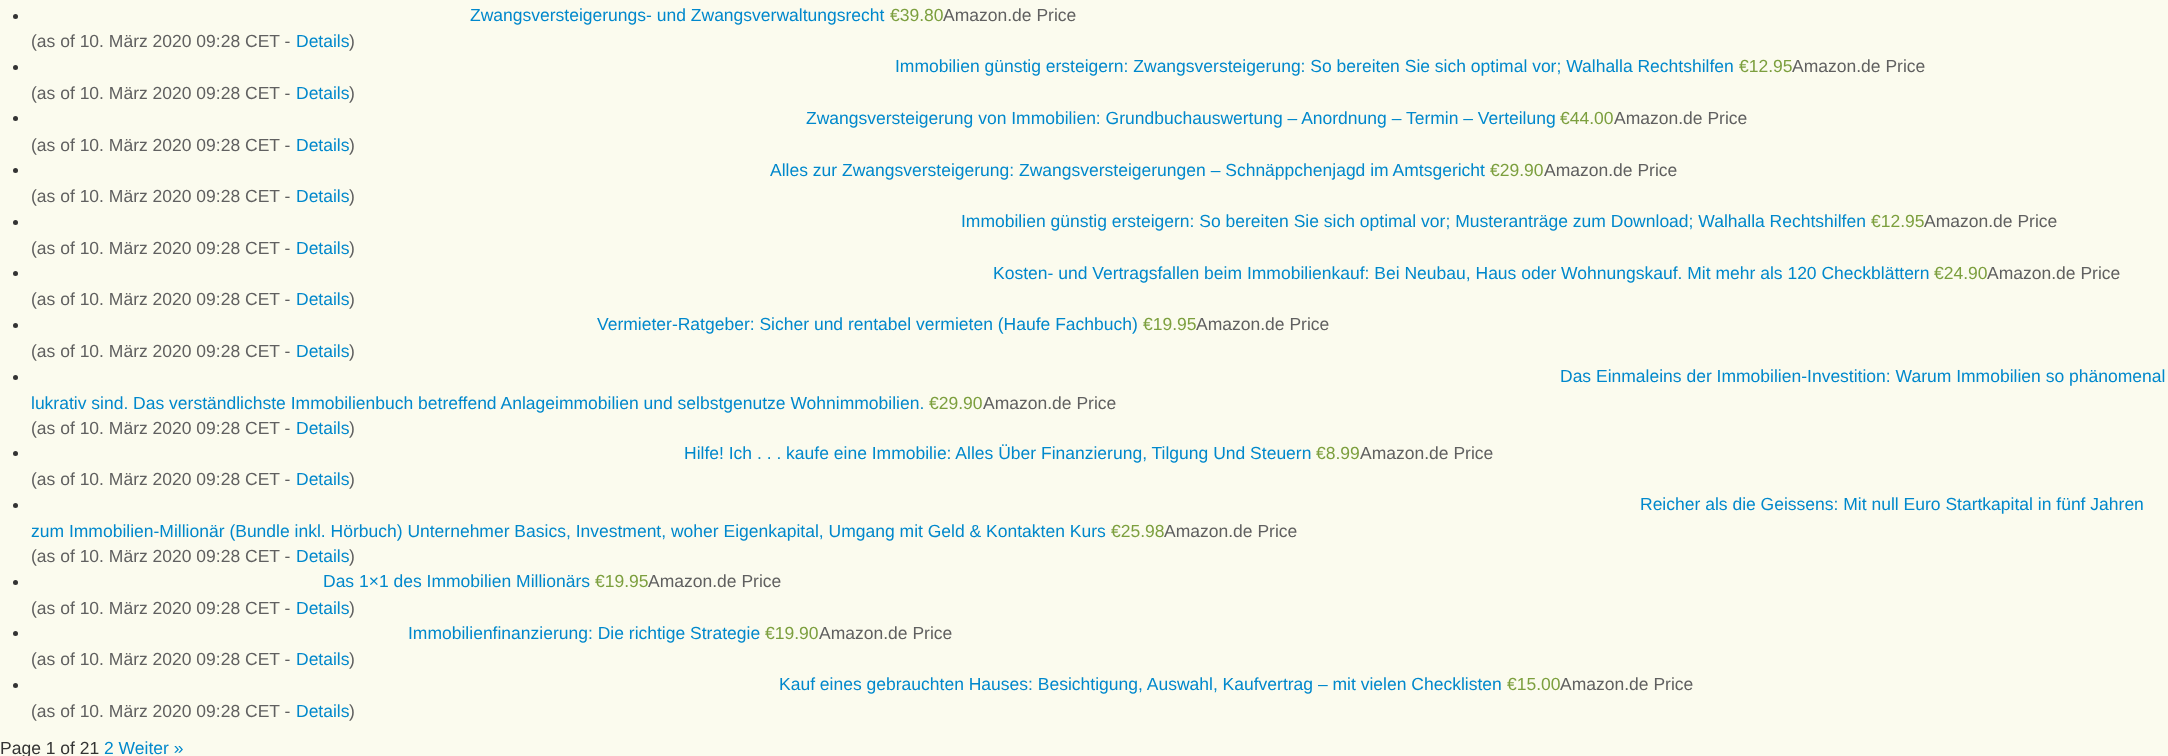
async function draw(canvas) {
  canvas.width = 2168
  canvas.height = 756
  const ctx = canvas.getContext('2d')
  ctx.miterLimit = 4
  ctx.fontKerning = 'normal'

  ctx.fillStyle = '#fbfbee'
  ctx.fillRect(0, 0, 2168, 756)
  ctx.fillStyle = '#333'
  ctx.beginPath()
  ctx.arc(15.5, 16.5, 2.5, 0, 2 * Math.PI)
  ctx.fill()
  ctx.font = '17.5px Liberation Sans'
  ctx.fillStyle = '#08c'
  ctx.fillText('Zwangsversteigerungs- und Zwangsverwaltungsrecht', 470, 21)
  ctx.fillStyle = '#7c9f3e'
  ctx.fillText('€39.80', 890, 21)
  ctx.fillStyle = '#606060'
  ctx.fillText('Amazon.de Price', 943, 21)
  ctx.fillText('(as of 10. März 2020 09:28 CET -', 31, 47)
  ctx.fillStyle = '#08c'
  ctx.fillText('Details', 296, 47)
  ctx.fillStyle = '#606060'
  ctx.fillText(')', 349, 47)
  ctx.fillStyle = '#333'
  ctx.beginPath()
  ctx.arc(15.5, 67.5, 2.5, 0, 2 * Math.PI)
  ctx.fill()
  ctx.fillStyle = '#08c'
  ctx.fillText('Immobilien günstig ersteigern: Zwangsversteigerung: So bereiten Sie sich optimal vor; Walhalla Rechtshilfen', 895, 72)
  ctx.fillStyle = '#7c9f3e'
  ctx.fillText('€12.95', 1739, 72)
  ctx.fillStyle = '#606060'
  ctx.fillText('Amazon.de Price', 1792, 72)
  ctx.fillText('(as of 10. März 2020 09:28 CET -', 31, 99)
  ctx.fillStyle = '#08c'
  ctx.fillText('Details', 296, 99)
  ctx.fillStyle = '#606060'
  ctx.fillText(')', 349, 99)
  ctx.fillStyle = '#333'
  ctx.beginPath()
  ctx.arc(15.5, 118.5, 2.5, 0, 2 * Math.PI)
  ctx.fill()
  ctx.fillStyle = '#08c'
  ctx.fillText('Zwangsversteigerung von Immobilien: Grundbuchauswertung – Anordnung – Termin – Verteilung', 806, 124)
  ctx.fillStyle = '#7c9f3e'
  ctx.fillText('€44.00', 1560, 124)
  ctx.fillStyle = '#606060'
  ctx.fillText('Amazon.de Price', 1614, 124)
  ctx.fillText('(as of 10. März 2020 09:28 CET -', 31, 151)
  ctx.fillStyle = '#08c'
  ctx.fillText('Details', 296, 151)
  ctx.fillStyle = '#606060'
  ctx.fillText(')', 349, 151)
  ctx.fillStyle = '#333'
  ctx.beginPath()
  ctx.arc(15.5, 170.5, 2.5, 0, 2 * Math.PI)
  ctx.fill()
  ctx.fillStyle = '#08c'
  ctx.fillText('Alles zur Zwangsversteigerung: Zwangsversteigerungen – Schnäppchenjagd im Amtsgericht', 770, 176)
  ctx.fillStyle = '#7c9f3e'
  ctx.fillText('€29.90', 1490, 176)
  ctx.fillStyle = '#606060'
  ctx.fillText('Amazon.de Price', 1544, 176)
  ctx.fillText('(as of 10. März 2020 09:28 CET -', 31, 202)
  ctx.fillStyle = '#08c'
  ctx.fillText('Details', 296, 202)
  ctx.fillStyle = '#606060'
  ctx.fillText(')', 349, 202)
  ctx.fillStyle = '#333'
  ctx.beginPath()
  ctx.arc(15.5, 222.5, 2.5, 0, 2 * Math.PI)
  ctx.fill()
  ctx.fillStyle = '#08c'
  ctx.fillText('Immobilien günstig ersteigern: So bereiten Sie sich optimal vor; Musteranträge zum Download; Walhalla Rechtshilfen', 961, 227)
  ctx.fillStyle = '#7c9f3e'
  ctx.fillText('€12.95', 1871, 227)
  ctx.fillStyle = '#606060'
  ctx.fillText('Amazon.de Price', 1924, 227)
  ctx.fillText('(as of 10. März 2020 09:28 CET -', 31, 254)
  ctx.fillStyle = '#08c'
  ctx.fillText('Details', 296, 254)
  ctx.fillStyle = '#606060'
  ctx.fillText(')', 349, 254)
  ctx.fillStyle = '#333'
  ctx.beginPath()
  ctx.arc(15.5, 273.5, 2.5, 0, 2 * Math.PI)
  ctx.fill()
  ctx.fillStyle = '#08c'
  ctx.fillText('Kosten- und Vertragsfallen beim Immobilienkauf: Bei Neubau, Haus oder Wohnungskauf. Mit mehr als 120 Checkblättern', 993, 279)
  ctx.fillStyle = '#7c9f3e'
  ctx.fillText('€24.90', 1934, 279)
  ctx.fillStyle = '#606060'
  ctx.fillText('Amazon.de Price', 1987, 279)
  ctx.fillText('(as of 10. März 2020 09:28 CET -', 31, 305)
  ctx.fillStyle = '#08c'
  ctx.fillText('Details', 296, 305)
  ctx.fillStyle = '#606060'
  ctx.fillText(')', 349, 305)
  ctx.fillStyle = '#333'
  ctx.beginPath()
  ctx.arc(15.5, 325.5, 2.5, 0, 2 * Math.PI)
  ctx.fill()
  ctx.fillStyle = '#08c'
  ctx.fillText('Vermieter-Ratgeber: Sicher und rentabel vermieten (Haufe Fachbuch)', 597, 330)
  ctx.fillStyle = '#7c9f3e'
  ctx.fillText('€19.95', 1143, 330)
  ctx.fillStyle = '#606060'
  ctx.fillText('Amazon.de Price', 1196, 330)
  ctx.fillText('(as of 10. März 2020 09:28 CET -', 31, 357)
  ctx.fillStyle = '#08c'
  ctx.fillText('Details', 296, 357)
  ctx.fillStyle = '#606060'
  ctx.fillText(')', 349, 357)
  ctx.fillStyle = '#333'
  ctx.beginPath()
  ctx.arc(15.5, 377.5, 2.5, 0, 2 * Math.PI)
  ctx.fill()
  ctx.fillStyle = '#08c'
  ctx.fillText('Das Einmaleins der Immobilien-Investition: Warum Immobilien so phänomenal', 1560, 382)
  ctx.fillText('lukrativ sind. Das verständlichste Immobilienbuch betreffend Anlageimmobilien und selbstgenutze Wohnimmobilien.', 31, 409)
  ctx.fillStyle = '#7c9f3e'
  ctx.fillText('€29.90', 929, 409)
  ctx.fillStyle = '#606060'
  ctx.fillText('Amazon.de Price', 983, 409)
  ctx.fillText('(as of 10. März 2020 09:28 CET -', 31, 434)
  ctx.fillStyle = '#08c'
  ctx.fillText('Details', 296, 434)
  ctx.fillStyle = '#606060'
  ctx.fillText(')', 349, 434)
  ctx.fillStyle = '#333'
  ctx.beginPath()
  ctx.arc(15.5, 453.5, 2.5, 0, 2 * Math.PI)
  ctx.fill()
  ctx.fillStyle = '#08c'
  ctx.fillText('Hilfe! Ich . . . kaufe eine Immobilie: Alles Über Finanzierung, Tilgung Und Steuern', 684, 459)
  ctx.fillStyle = '#7c9f3e'
  ctx.fillText('€8.99', 1316, 459)
  ctx.fillStyle = '#606060'
  ctx.fillText('Amazon.de Price', 1360, 459)
  ctx.fillText('(as of 10. März 2020 09:28 CET -', 31, 485)
  ctx.fillStyle = '#08c'
  ctx.fillText('Details', 296, 485)
  ctx.fillStyle = '#606060'
  ctx.fillText(')', 349, 485)
  ctx.fillStyle = '#333'
  ctx.beginPath()
  ctx.arc(15.5, 505.5, 2.5, 0, 2 * Math.PI)
  ctx.fill()
  ctx.fillStyle = '#08c'
  ctx.fillText('Reicher als die Geissens: Mit null Euro Startkapital in fünf Jahren', 1640, 510)
  ctx.fillText('zum Immobilien-Millionär (Bundle inkl. Hörbuch) Unternehmer Basics, Investment, woher Eigenkapital, Umgang mit Geld & Kontakten Kurs', 31, 537)
  ctx.fillStyle = '#7c9f3e'
  ctx.fillText('€25.98', 1111, 537)
  ctx.fillStyle = '#606060'
  ctx.fillText('Amazon.de Price', 1164, 537)
  ctx.fillText('(as of 10. März 2020 09:28 CET -', 31, 562)
  ctx.fillStyle = '#08c'
  ctx.fillText('Details', 296, 562)
  ctx.fillStyle = '#606060'
  ctx.fillText(')', 349, 562)
  ctx.fillStyle = '#333'
  ctx.beginPath()
  ctx.arc(15.5, 582.5, 2.5, 0, 2 * Math.PI)
  ctx.fill()
  ctx.fillStyle = '#08c'
  ctx.fillText('Das 1×1 des Immobilien Millionärs', 323, 587)
  ctx.fillStyle = '#7c9f3e'
  ctx.fillText('€19.95', 595, 587)
  ctx.fillStyle = '#606060'
  ctx.fillText('Amazon.de Price', 648, 587)
  ctx.fillText('(as of 10. März 2020 09:28 CET -', 31, 614)
  ctx.fillStyle = '#08c'
  ctx.fillText('Details', 296, 614)
  ctx.fillStyle = '#606060'
  ctx.fillText(')', 349, 614)
  ctx.fillStyle = '#333'
  ctx.beginPath()
  ctx.arc(15.5, 633.5, 2.5, 0, 2 * Math.PI)
  ctx.fill()
  ctx.fillStyle = '#08c'
  ctx.fillText('Immobilienfinanzierung: Die richtige Strategie', 408, 639)
  ctx.fillStyle = '#7c9f3e'
  ctx.fillText('€19.90', 765, 639)
  ctx.fillStyle = '#606060'
  ctx.fillText('Amazon.de Price', 819, 639)
  ctx.fillText('(as of 10. März 2020 09:28 CET -', 31, 665)
  ctx.fillStyle = '#08c'
  ctx.fillText('Details', 296, 665)
  ctx.fillStyle = '#606060'
  ctx.fillText(')', 349, 665)
  ctx.fillStyle = '#333'
  ctx.beginPath()
  ctx.arc(15.5, 685.5, 2.5, 0, 2 * Math.PI)
  ctx.fill()
  ctx.fillStyle = '#08c'
  ctx.fillText('Kauf eines gebrauchten Hauses: Besichtigung, Auswahl, Kaufvertrag – mit vielen Checklisten', 779, 690)
  ctx.fillStyle = '#7c9f3e'
  ctx.fillText('€15.00', 1507, 690)
  ctx.fillStyle = '#606060'
  ctx.fillText('Amazon.de Price', 1560, 690)
  ctx.fillText('(as of 10. März 2020 09:28 CET -', 31, 717)
  ctx.fillStyle = '#08c'
  ctx.fillText('Details', 296, 717)
  ctx.fillStyle = '#606060'
  ctx.fillText(')', 349, 717)
  ctx.fillStyle = '#333'
  ctx.fillText('Page 1 of 21', 0, 754)
  ctx.fillStyle = '#08c'
  ctx.fillText('2 Weiter »', 104, 754)
}

draw(document.querySelector('canvas'))
